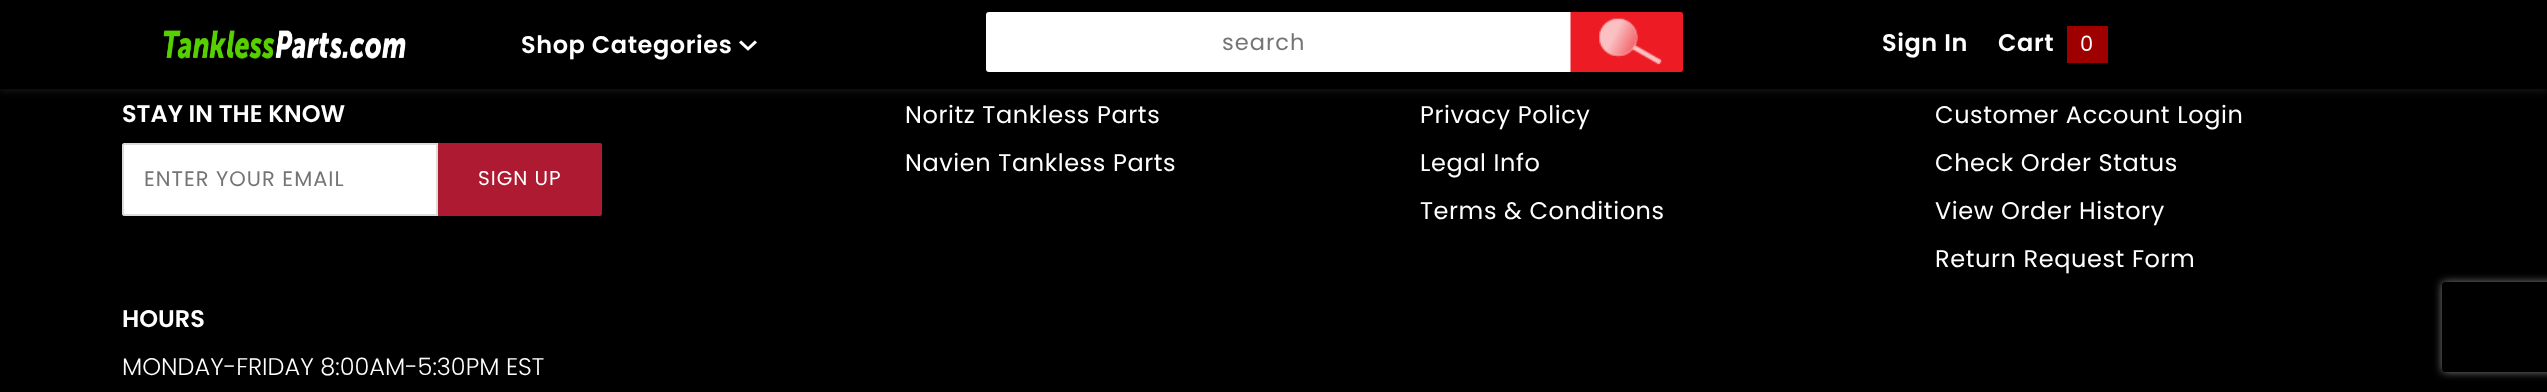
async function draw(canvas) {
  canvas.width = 2547
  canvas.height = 392
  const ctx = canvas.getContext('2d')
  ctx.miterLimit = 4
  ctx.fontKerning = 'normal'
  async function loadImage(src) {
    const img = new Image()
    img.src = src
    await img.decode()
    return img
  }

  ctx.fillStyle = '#000'
  ctx.fillRect(0, 0, 2547, 392)
  ctx.fillStyle = '#80808026'
  ctx.filter = 'blur(3px)'
  ctx.beginPath()
  ctx.rect(0, 3, 2547, 89)
  ctx.fill()
  ctx.filter = 'none'
  ctx.fillStyle = '#000'
  ctx.fillRect(0, 0, 2547, 89)
  ctx.drawImage(await loadImage('image0.png'), 163, 30, 243, 29)
  ctx.letterSpacing = '0.6px'
  ctx.font = '600 24px Poppins'
  ctx.fillStyle = '#fff'
  ctx.fillText('Shop Categories', 521, 53)
  ctx.font = '18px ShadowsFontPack'
  ctx.fillText('1', 739, 53)
  ctx.beginPath()
  ctx.roundRect(986, 12, 600, 60, [3, 0, 0, 3])
  ctx.fill()
  ctx.letterSpacing = '1px'
  ctx.font = '22.5px Poppins'
  ctx.fillStyle = '#757575'
  ctx.fillText('search', 1222, 50)
  ctx.drawImage(await loadImage('image1.png'), 1570, 12, 113, 60)
  ctx.letterSpacing = '0.6px'
  ctx.font = '600 24px Poppins'
  ctx.fillStyle = '#fff'
  ctx.fillText('Sign In', 1882, 51)
  ctx.fillText('Cart', 1998, 51)
  ctx.fillStyle = '#9e0000'
  ctx.fillRect(2067, 26, 41, 37)
  ctx.font = '21px Poppins'
  ctx.fillStyle = '#fff'
  ctx.fillText('0', 2080, 51)
  ctx.letterSpacing = '0px'
  ctx.font = '600 24px Poppins'
  ctx.fillText('STAY IN THE KNOW', 122, 122)
  ctx.beginPath()
  ctx.roundRect(122, 143, 316, 73, [3, 0, 0, 3])
  ctx.fill()
  ctx.beginPath()
  ctx.roundRect(123, 144, 314, 71, [2, 0, 0, 2])
  ctx.strokeStyle = '#cdcdcdb3'
  ctx.lineWidth = 2
  ctx.stroke()
  ctx.letterSpacing = '1px'
  ctx.font = '21px Poppins'
  ctx.fillStyle = '#757575'
  ctx.fillText('ENTER YOUR EMAIL', 144, 186)
  ctx.fillStyle = '#ad1a32'
  ctx.beginPath()
  ctx.roundRect(438, 143, 164, 73, [0, 2, 2, 0])
  ctx.fill()
  ctx.font = '20px Poppins'
  ctx.fillStyle = '#fff'
  ctx.fillText('SIGN UP', 478, 185)
  ctx.letterSpacing = '0px'
  ctx.font = '600 24px Poppins'
  ctx.fillText('HOURS', 122, 327)
  ctx.font = '300 24px Poppins'
  ctx.fillText('MONDAY-FRIDAY 8:00AM-5:30PM EST', 122, 375)
  ctx.letterSpacing = '0.6px'
  ctx.font = '24px Poppins'
  ctx.fillText('Noritz Tankless Parts', 905, 123)
  ctx.fillText('Navien Tankless Parts', 905, 171)
  ctx.fillText('Privacy Policy', 1420, 123)
  ctx.fillText('Legal Info', 1420, 171)
  ctx.fillText('Terms & Conditions', 1420, 219)
  ctx.fillText('Customer Account Login', 1935, 123)
  ctx.fillText('Check Order Status', 1935, 171)
  ctx.fillText('View Order History', 1935, 219)
  ctx.fillText('Return Request Form', 1935, 267)
  ctx.save()
  ctx.beginPath()
  ctx.moveTo(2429, 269)
  ctx.lineTo(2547, 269)
  ctx.lineTo(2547, 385)
  ctx.lineTo(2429, 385)
  ctx.closePath()
  ctx.moveTo(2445, 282)
  ctx.lineTo(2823, 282)
  ctx.bezierCurveTo(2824.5, 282, 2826, 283.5, 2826, 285)
  ctx.lineTo(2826, 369)
  ctx.bezierCurveTo(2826, 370.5, 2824.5, 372, 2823, 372)
  ctx.lineTo(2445, 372)
  ctx.bezierCurveTo(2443.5, 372, 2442, 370.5, 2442, 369)
  ctx.lineTo(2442, 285)
  ctx.bezierCurveTo(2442, 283.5, 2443.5, 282, 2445, 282)
  ctx.closePath()
  ctx.clip('evenodd')
  ctx.fillStyle = '#808080'
  ctx.filter = 'blur(4px)'
  ctx.beginPath()
  ctx.roundRect(2442, 282, 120, 90, 3)
  ctx.fill()
  ctx.filter = 'none'
  ctx.restore()
}

draw(document.querySelector('canvas'))
